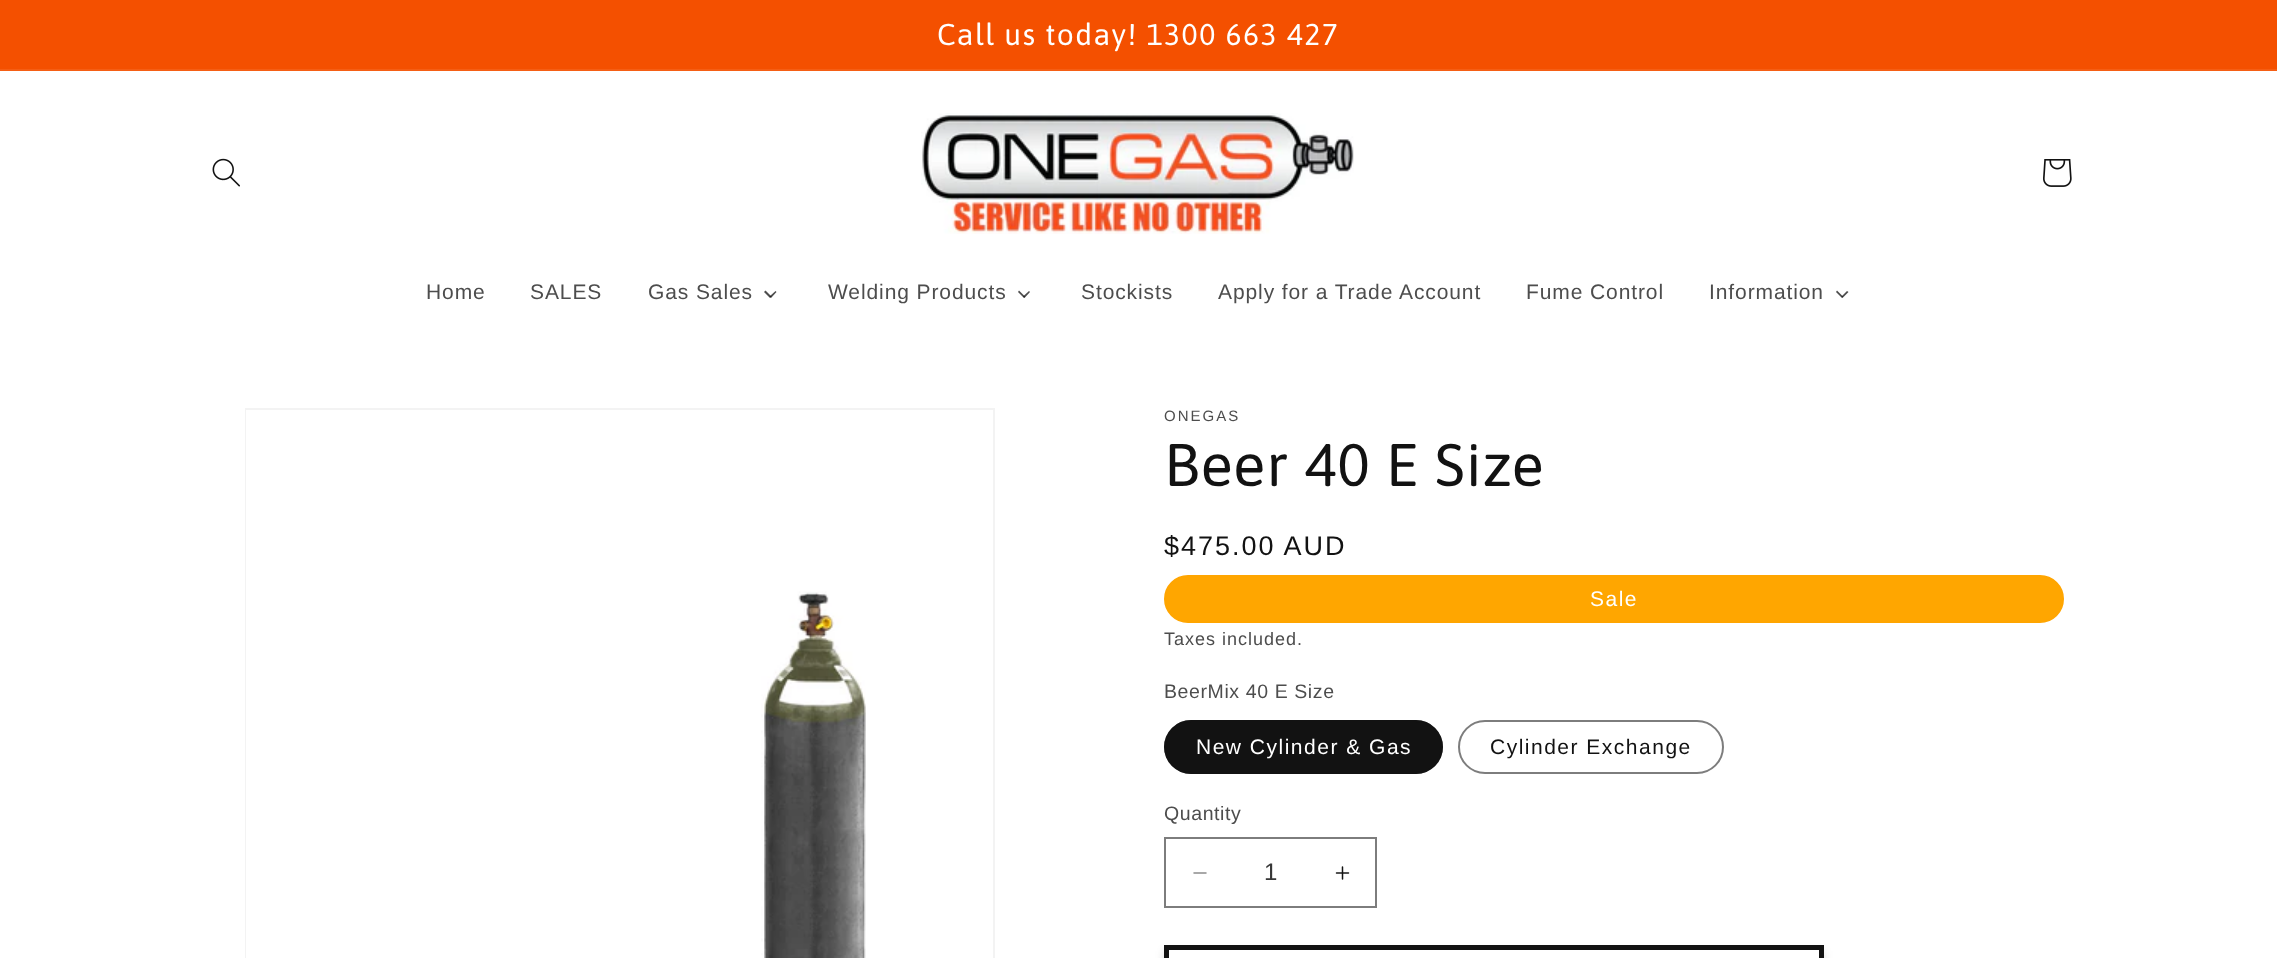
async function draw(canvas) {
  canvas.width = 2277
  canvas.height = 958
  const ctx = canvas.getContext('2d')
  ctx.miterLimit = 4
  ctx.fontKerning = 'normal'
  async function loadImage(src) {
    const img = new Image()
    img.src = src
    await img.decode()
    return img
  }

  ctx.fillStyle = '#fff'
  ctx.fillRect(0, 0, 2277, 958)
  ctx.fillStyle = '#f45000'
  ctx.fillRect(0, 0, 2277, 69)
  ctx.fillStyle = '#f55e14'
  ctx.fillRect(0, 69, 2277, 2)
  ctx.letterSpacing = '1.5px'
  ctx.font = '30px Asap'
  ctx.fillStyle = '#fff'
  ctx.fillText('Call us today! 1300 663 427', 937, 45)
  ctx.drawImage(await loadImage('image0.png'), 212, 158, 28, 29)
  ctx.drawImage(await loadImage('image1.png'), 921, 113, 433, 121)
  ctx.drawImage(await loadImage('image2.png'), 2043, 159, 29, 28)
  ctx.letterSpacing = '0.9px'
  ctx.font = '21px Liberation Sans'
  ctx.fillStyle = '#4d4d4d'
  ctx.fillText('Home', 426, 299)
  ctx.fillText('SALES', 530, 299)
  ctx.fillText('Gas Sales', 648, 299)
  ctx.beginPath()
  ctx.moveTo(775.5, 291)
  ctx.lineTo(776.5, 292)
  ctx.lineTo(771, 298)
  ctx.lineTo(769.5, 296.5)
  ctx.closePath()
  ctx.fill()
  ctx.fillStyle = '#121212bf'
  ctx.beginPath()
  ctx.moveTo(765.5, 290.5)
  ctx.lineTo(771.5, 296.5)
  ctx.lineTo(770, 298)
  ctx.lineTo(764, 292)
  ctx.closePath()
  ctx.fill()
  ctx.fillStyle = '#4d4d4d'
  ctx.fillText('Welding Products', 828, 299)
  ctx.beginPath()
  ctx.moveTo(1029, 291)
  ctx.lineTo(1030, 292)
  ctx.lineTo(1024.5, 298)
  ctx.lineTo(1023, 296.5)
  ctx.closePath()
  ctx.fill()
  ctx.fillStyle = '#121212bf'
  ctx.beginPath()
  ctx.moveTo(1019, 290.5)
  ctx.lineTo(1025, 296.5)
  ctx.lineTo(1024, 298)
  ctx.lineTo(1018, 292)
  ctx.closePath()
  ctx.fill()
  ctx.fillStyle = '#4d4d4d'
  ctx.fillText('Stockists', 1081, 299)
  ctx.fillText('Apply for a Trade', 1218, 299)
  ctx.fillText('Account', 1399, 299)
  ctx.fillText('Fume Control', 1526, 299)
  ctx.fillText('Information', 1709, 299)
  ctx.beginPath()
  ctx.moveTo(1847, 291)
  ctx.lineTo(1848.5, 292)
  ctx.lineTo(1842.5, 298)
  ctx.lineTo(1841.5, 296.5)
  ctx.closePath()
  ctx.fill()
  ctx.fillStyle = '#121212bf'
  ctx.beginPath()
  ctx.moveTo(1837, 290.5)
  ctx.lineTo(1843, 296.5)
  ctx.lineTo(1842, 298)
  ctx.lineTo(1836, 292)
  ctx.closePath()
  ctx.fill()
  ctx.strokeStyle = '#f3f3f3'
  ctx.lineWidth = 2
  ctx.strokeRect(246, 409, 748, 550)
  ctx.drawImage(await loadImage('image3.png'), 246, 410, 620, 548)
  ctx.letterSpacing = '2px'
  ctx.font = '15px Liberation Sans'
  ctx.fillStyle = '#4d4d4d'
  ctx.fillText('ONEGAS', 1164, 421)
  ctx.letterSpacing = '0.9px'
  ctx.font = '60px Asap'
  ctx.fillStyle = '#121212'
  ctx.fillText('Beer 40 E Size', 1164, 486)
  ctx.letterSpacing = '2px'
  ctx.font = '27px Liberation Sans'
  ctx.fillText('$475.00 AUD', 1164, 555)
  ctx.fillStyle = '#ffa600'
  ctx.beginPath()
  ctx.roundRect(1165, 576, 898, 46, 23)
  ctx.fill()
  ctx.strokeStyle = '#ffa500'
  ctx.stroke()
  ctx.letterSpacing = '1.5px'
  ctx.font = '21px Liberation Sans'
  ctx.fillStyle = '#fff'
  ctx.fillText('Sale', 1590, 606)
  ctx.letterSpacing = '1px'
  ctx.font = '18px Liberation Sans'
  ctx.fillStyle = '#4d4d4d'
  ctx.fillText('Taxes included.', 1164, 645)
  ctx.letterSpacing = '0.6px'
  ctx.font = '19.5px Liberation Sans'
  ctx.fillText('BeerMix 40 E Size', 1164, 698)
  ctx.fillStyle = '#121212'
  ctx.beginPath()
  ctx.roundRect(1164, 720, 279, 54, 27)
  ctx.fill()
  ctx.beginPath()
  ctx.roundRect(1165, 721, 277, 52, 26)
  ctx.strokeStyle = '#1212128c'
  ctx.stroke()
  ctx.letterSpacing = '1.5px'
  ctx.font = '21px Liberation Sans'
  ctx.fillStyle = '#fff'
  ctx.fillText('New Cylinder & Gas', 1196, 754)
  ctx.beginPath()
  ctx.roundRect(1459, 721, 264, 52, 26)
  ctx.strokeStyle = '#7d7d7d'
  ctx.stroke()
  ctx.fillStyle = '#121212'
  ctx.fillText('Cylinder Exchange', 1490, 754)
  ctx.letterSpacing = '0.6px'
  ctx.font = '19.5px Liberation Sans'
  ctx.fillStyle = '#4d4d4d'
  ctx.fillText('Quantity', 1164, 820)
  ctx.drawImage(await loadImage('image4.png'), 1193, 872, 14, 2)
  ctx.drawImage(await loadImage('image5.png'), 1335, 866, 15, 14)
  ctx.strokeRect(1165, 838, 211, 69)
  ctx.letterSpacing = '0px'
  ctx.font = '24px Liberation Sans'
  ctx.fillStyle = '#363636'
  ctx.fillText('1', 1264, 880)
  ctx.save()
  ctx.beginPath()
  ctx.moveTo(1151, 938)
  ctx.lineTo(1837, 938)
  ctx.lineTo(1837, 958)
  ctx.lineTo(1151, 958)
  ctx.closePath()
  ctx.moveTo(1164, 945)
  ctx.lineTo(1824, 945)
  ctx.lineTo(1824, 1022)
  ctx.lineTo(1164, 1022)
  ctx.closePath()
  ctx.clip('evenodd')
  ctx.fillStyle = '#12121226'
  ctx.filter = 'blur(4px)'
  ctx.beginPath()
  ctx.rect(1164, 951, 660, 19)
  ctx.fill()
  ctx.filter = 'none'
  ctx.restore()
  ctx.strokeStyle = '#121212'
  ctx.lineWidth = 5
  ctx.strokeRect(1166.5, 947.5, 655, 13)
}

draw(document.querySelector('canvas'))
